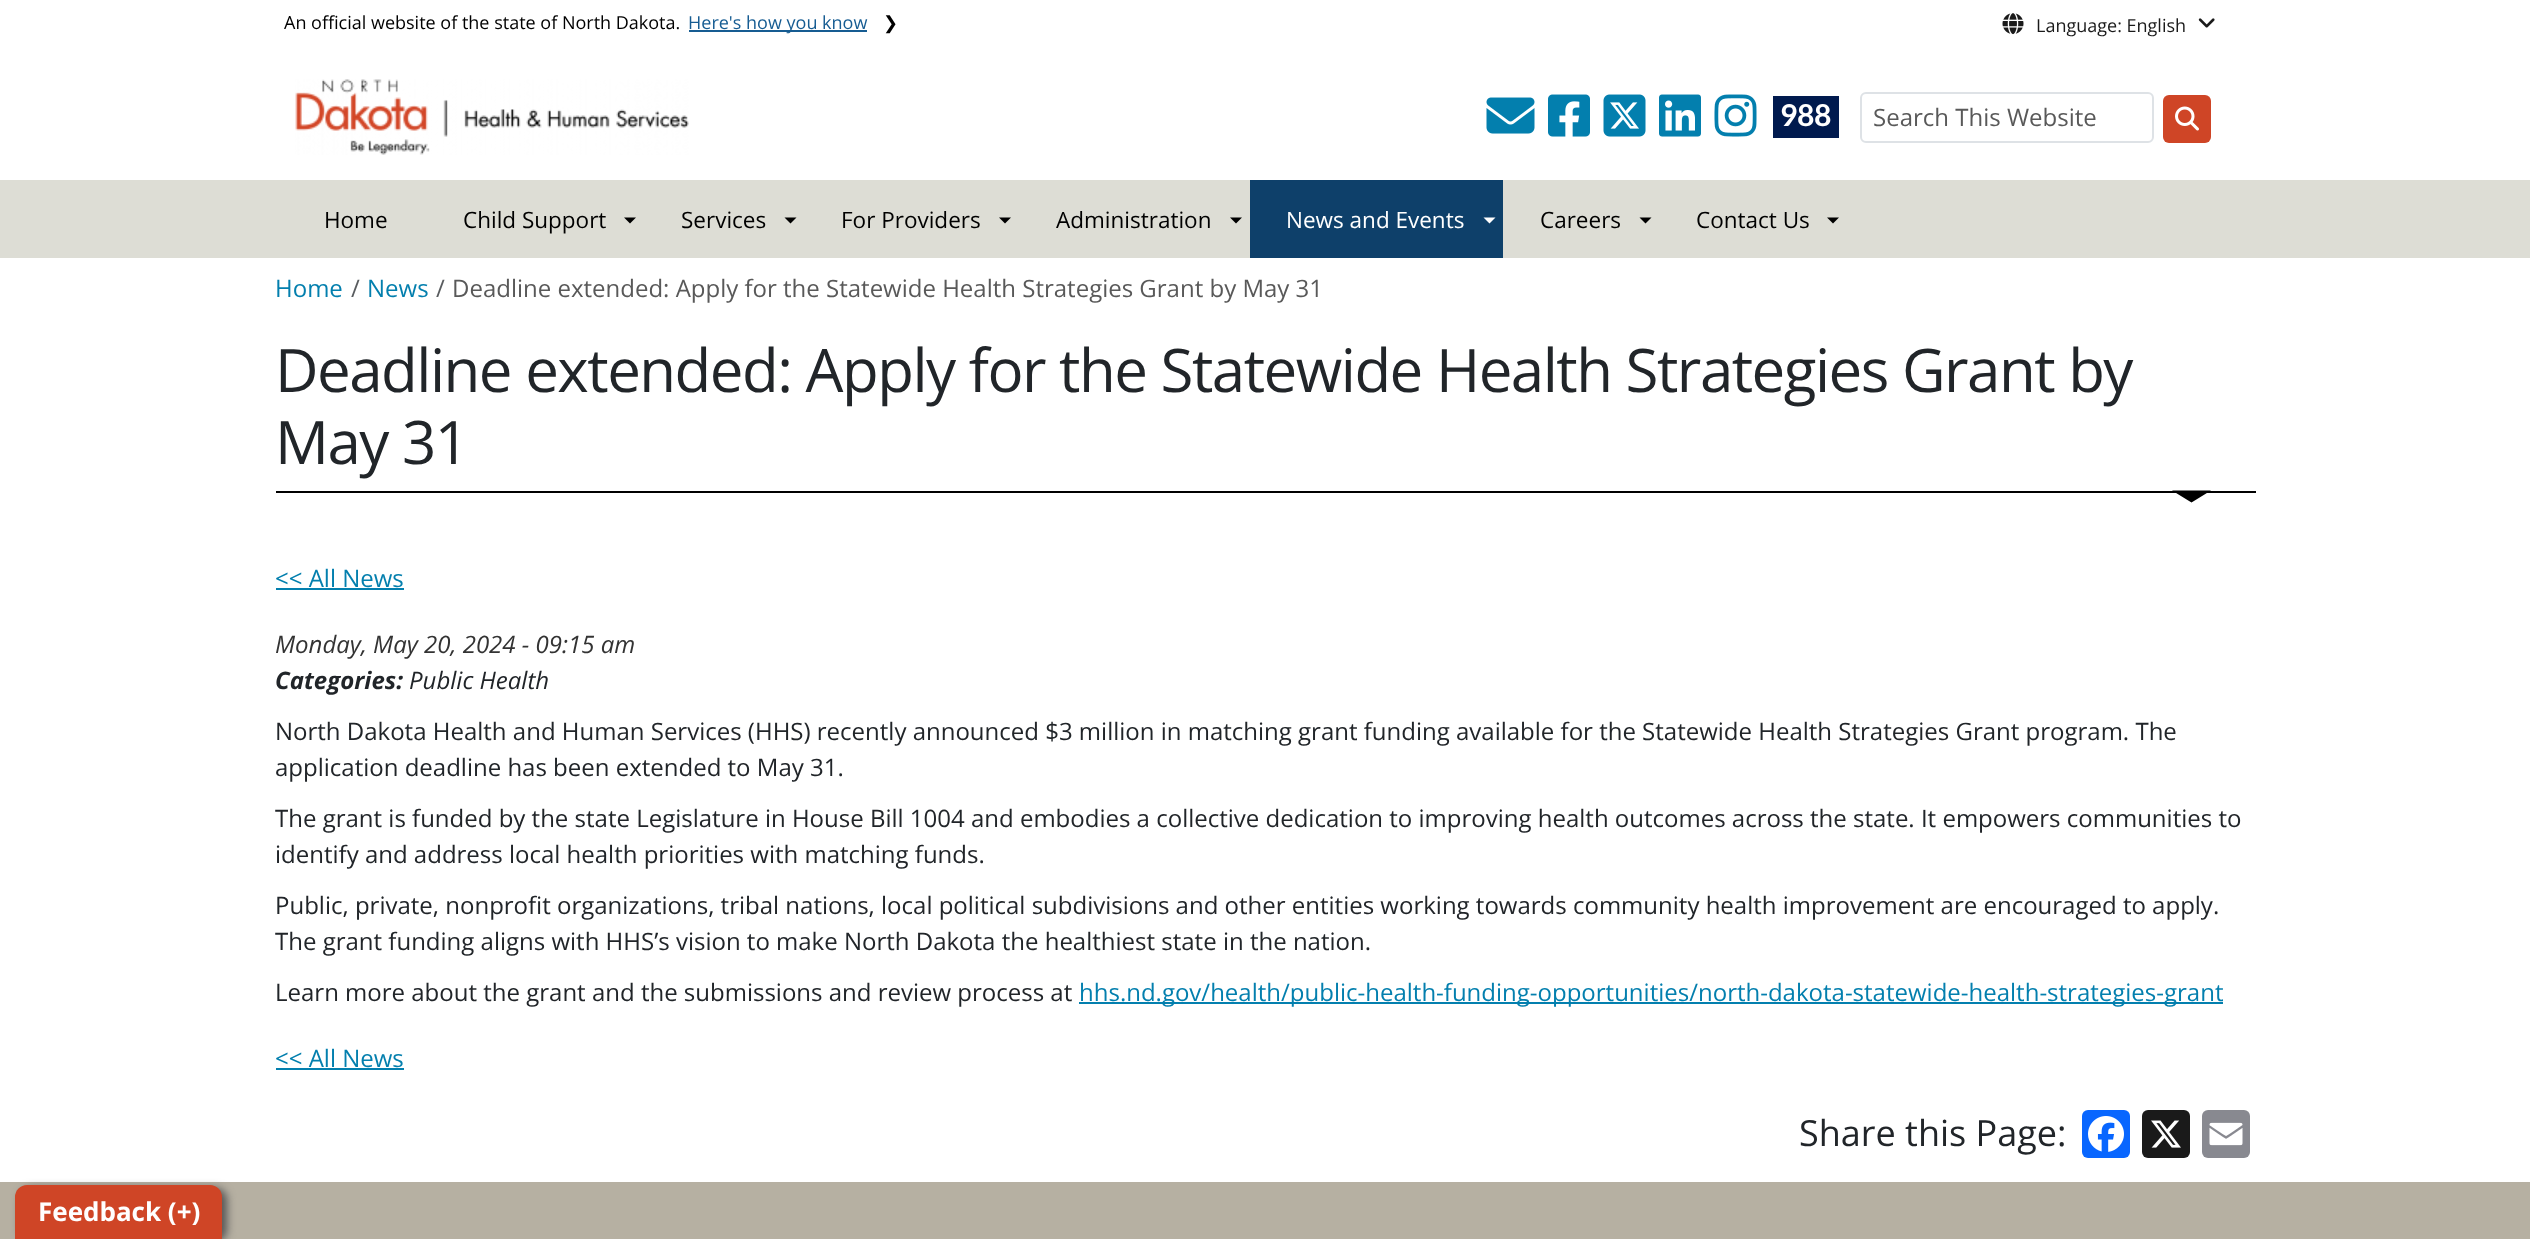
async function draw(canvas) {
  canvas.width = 2530
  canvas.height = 1239
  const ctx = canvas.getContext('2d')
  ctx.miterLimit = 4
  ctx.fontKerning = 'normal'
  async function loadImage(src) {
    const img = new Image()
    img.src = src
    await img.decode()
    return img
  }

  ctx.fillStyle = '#fff'
  ctx.fillRect(0, 0, 2530, 1239)
  ctx.font = '18px Open Sans'
  ctx.fillStyle = '#000'
  ctx.fillText('An official website of the state of North Dakota.', 284, 29)
  ctx.fillStyle = '#165c92'
  ctx.fillRect(689, 30, 178, 2)
  ctx.fillText('Here\'s how you know', 688, 29)
  ctx.font = '18px DejaVu Sans'
  ctx.fillStyle = '#000'
  ctx.fillText('❯', 883, 29)
  ctx.drawImage(await loadImage('image0.png'), 2002, 13, 22, 22)
  ctx.font = '18px Open Sans'
  ctx.fillStyle = '#1a1a1a'
  ctx.fillText('Language: English', 2036, 32)
  ctx.drawImage(await loadImage('image1.png'), 2198, 18, 17, 10)
  ctx.drawImage(await loadImage('image2.png'), 295, 79, 394, 76)
  ctx.drawImage(await loadImage('image3.png'), 1486, 97, 49, 37)
  ctx.drawImage(await loadImage('image4.png'), 1548, 94, 42, 43)
  ctx.drawImage(await loadImage('image5.png'), 1603, 94, 43, 43)
  ctx.drawImage(await loadImage('image6.png'), 1659, 94, 42, 43)
  ctx.drawImage(await loadImage('image7.png'), 1714, 94, 43, 43)
  ctx.fillStyle = '#001a4e'
  ctx.fillRect(1773, 96, 66, 42)
  ctx.font = 'bold 30px Aleo'
  ctx.fillStyle = '#fff'
  ctx.fillText('988', 1781, 126)
  ctx.beginPath()
  ctx.roundRect(1861, 93, 292, 49, 5)
  ctx.strokeStyle = '#dee2e6'
  ctx.lineWidth = 2
  ctx.stroke()
  ctx.font = '24px Open Sans'
  ctx.fillStyle = '#595959'
  ctx.fillText('Search This Website', 1873, 126)
  ctx.fillStyle = '#cf4526'
  ctx.beginPath()
  ctx.roundRect(2163, 95, 48, 48, 6)
  ctx.fill()
  ctx.drawImage(await loadImage('image8.png'), 2175, 106, 24, 25)
  ctx.fillStyle = '#ddddd5'
  ctx.fillRect(0, 180, 2530, 78)
  ctx.font = '22.5px Open Sans'
  ctx.fillStyle = '#000'
  ctx.fillText('Home', 324, 228)
  ctx.fillText('Child Support', 463, 228)
  ctx.beginPath()
  ctx.moveTo(624, 217.5)
  ctx.lineTo(636, 217.5)
  ctx.lineTo(630, 223.5)
  ctx.closePath()
  ctx.fill()
  ctx.fillText('Services', 681, 228)
  ctx.beginPath()
  ctx.moveTo(784.5, 217.5)
  ctx.lineTo(796.5, 217.5)
  ctx.lineTo(790.5, 223.5)
  ctx.closePath()
  ctx.fill()
  ctx.fillText('For Providers', 841, 228)
  ctx.beginPath()
  ctx.moveTo(999, 217.5)
  ctx.lineTo(1011, 217.5)
  ctx.lineTo(1005, 223.5)
  ctx.closePath()
  ctx.fill()
  ctx.fillText('Administration', 1056, 228)
  ctx.beginPath()
  ctx.moveTo(1230, 217.5)
  ctx.lineTo(1242, 217.5)
  ctx.lineTo(1236, 223.5)
  ctx.closePath()
  ctx.fill()
  ctx.fillStyle = '#0e406a'
  ctx.fillRect(1250, 180, 253, 78)
  ctx.fillStyle = '#fff'
  ctx.fillText('News and Events', 1286, 228)
  ctx.beginPath()
  ctx.moveTo(1483.5, 217.5)
  ctx.lineTo(1495.5, 217.5)
  ctx.lineTo(1489.5, 223.5)
  ctx.closePath()
  ctx.fill()
  ctx.fillStyle = '#000'
  ctx.fillText('Careers', 1540, 228)
  ctx.beginPath()
  ctx.moveTo(1639.5, 217.5)
  ctx.lineTo(1651.5, 217.5)
  ctx.lineTo(1645.5, 223.5)
  ctx.closePath()
  ctx.fill()
  ctx.fillText('Contact Us', 1696, 228)
  ctx.beginPath()
  ctx.moveTo(1827, 217.5)
  ctx.lineTo(1839, 217.5)
  ctx.lineTo(1833, 223.5)
  ctx.closePath()
  ctx.fill()
  ctx.font = '24px Open Sans'
  ctx.fillStyle = '#037fae'
  ctx.fillText('Home', 275, 297)
  ctx.fillStyle = '#595c5f'
  ctx.fillText('/', 351, 297)
  ctx.fillStyle = '#037fae'
  ctx.fillText('News', 367, 297)
  ctx.fillStyle = '#595c5f'
  ctx.fillText('/', 436, 297)
  ctx.fillStyle = '#595959'
  ctx.fillText('Deadline extended: Apply for the Statewide Health Strategies Grant by May 31', 452, 297)
  ctx.fillStyle = '#000'
  ctx.fillRect(276, 491, 1980, 2)
  ctx.letterSpacing = '-1.5px'
  ctx.font = '60px Open Sans'
  ctx.fillStyle = '#212529'
  ctx.fillText('Deadline extended: Apply for the Statewide Health Strategies Grant by', 275, 392)
  ctx.fillText('May 31', 275, 464)
  ctx.fillStyle = '#000'
  ctx.beginPath()
  ctx.moveTo(2172, 490.5)
  ctx.lineTo(2211, 490.5)
  ctx.lineTo(2191.5, 502.5)
  ctx.closePath()
  ctx.fill()
  ctx.letterSpacing = '0px'
  ctx.font = '24px Open Sans'
  ctx.fillStyle = '#037fae'
  ctx.fillText('<< All News', 275, 587)
  ctx.fillRect(276, 588, 128, 2)
  ctx.font = 'italic 24px Open Sans'
  ctx.fillStyle = '#333'
  ctx.fillText('Monday, May 20, 2024 - 09:15 am', 275, 653)
  ctx.font = 'italic bold 24px Open Sans'
  ctx.fillStyle = '#212529'
  ctx.fillText('Categories:', 275, 689)
  ctx.font = 'italic 24px Open Sans'
  ctx.fillText('Public Health', 409, 689)
  ctx.font = '24px Open Sans'
  ctx.fillText('North Dakota Health and Human Services (HHS) recently announced $3 million in matching grant funding available for the Statewide Health Strategies Grant program. The', 275, 740)
  ctx.fillText('application deadline has been extended to May 31.', 275, 776)
  ctx.fillText('The grant is funded by the state Legislature in House Bill 1004 and embodies a collective dedication to improving health outcomes across the state. It empowers communities to', 275, 827)
  ctx.fillText('identify and address local health priorities with matching funds.', 275, 863)
  ctx.fillText('Public, private, nonprofit organizations, tribal nations, local political subdivisions and other entities working towards community health improvement are encouraged to apply.', 275, 914)
  ctx.fillText('The grant funding aligns with HHS’s vision to make North Dakota the healthiest state in the nation.', 275, 950)
  ctx.fillText('Learn more about the grant and the submissions and review process at', 275, 1001)
  ctx.fillStyle = '#037fae'
  ctx.fillRect(1079, 1002, 1144, 2)
  ctx.fillText('hhs.nd.gov/health/public-health-funding-opportunities/north-dakota-statewide-health-strategies-grant', 1079, 1001)
  ctx.fillText('<< All News', 275, 1067)
  ctx.fillRect(276, 1068, 128, 2)
  ctx.font = '36px Open Sans'
  ctx.fillStyle = '#212529'
  ctx.fillText('Share this Page:', 1799, 1146)
  ctx.fillStyle = '#0866ff'
  ctx.beginPath()
  ctx.roundRect(2082, 1110, 48, 48, 6)
  ctx.fill()
  ctx.drawImage(await loadImage('image9.png'), 2088, 1116, 36, 36)
  ctx.fillStyle = '#1a1a1a'
  ctx.beginPath()
  ctx.roundRect(2142, 1110, 48, 48, 6)
  ctx.fill()
  ctx.drawImage(await loadImage('image10.png'), 2151, 1120, 30, 28)
  ctx.fillStyle = '#888990'
  ctx.beginPath()
  ctx.roundRect(2202, 1110, 48, 48, 6)
  ctx.fill()
  ctx.drawImage(await loadImage('image11.png'), 2209, 1122, 34, 24)
  ctx.fillStyle = '#b6b0a2'
  ctx.fillRect(0, 1182, 2530, 57)
  ctx.fillStyle = '#555'
  ctx.filter = 'blur(4px)'
  ctx.beginPath()
  ctx.roundRect(20, 1188, 207, 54, 12)
  ctx.fill()
  ctx.filter = 'none'
  ctx.fillStyle = '#cf4526'
  ctx.beginPath()
  ctx.roundRect(15, 1185, 207, 54, [12, 12, 0, 0])
  ctx.fill()
  ctx.font = 'bold 26px Open Sans'
  ctx.fillStyle = '#fff'
  ctx.fillText('Feedback (+)', 38, 1221)
}

draw(document.querySelector('canvas'))
